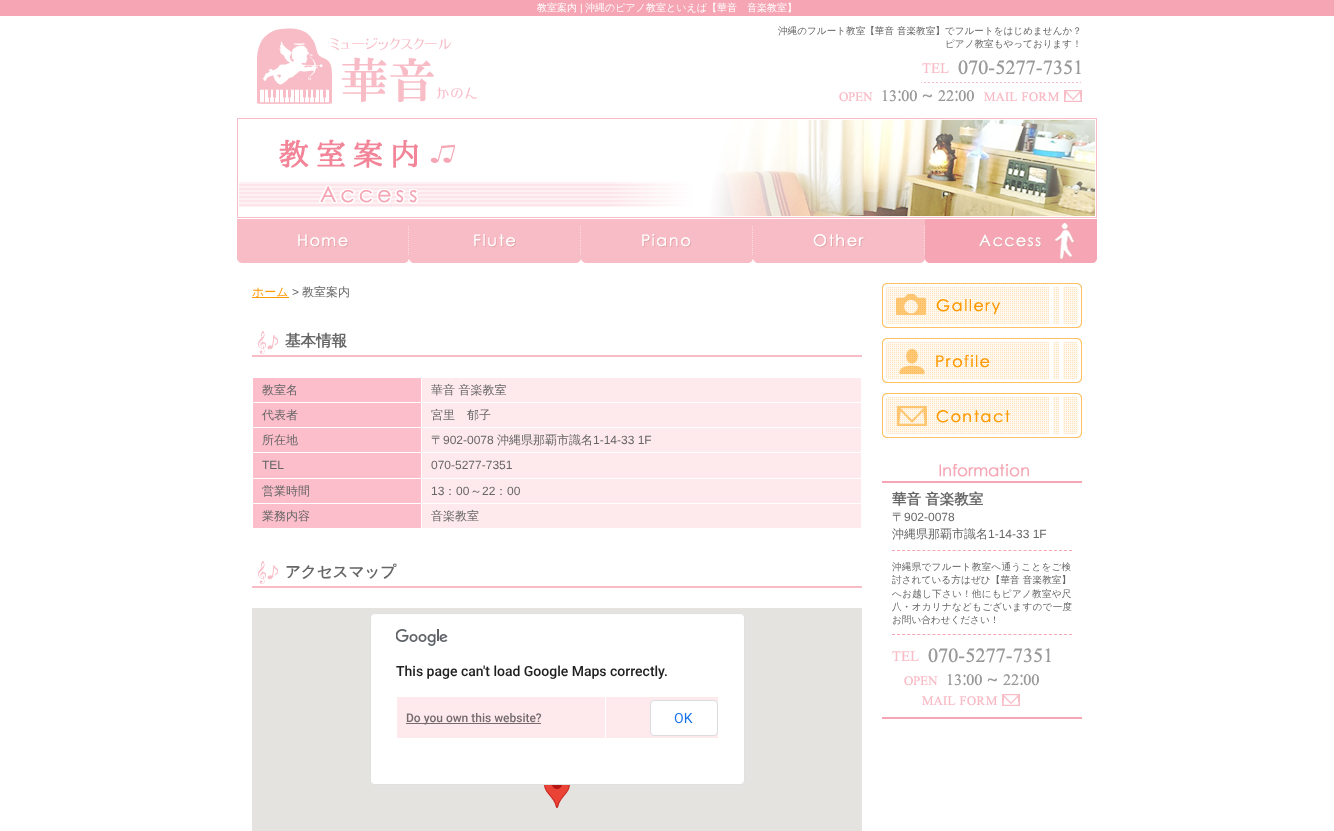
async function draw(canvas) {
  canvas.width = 1334
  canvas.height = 831
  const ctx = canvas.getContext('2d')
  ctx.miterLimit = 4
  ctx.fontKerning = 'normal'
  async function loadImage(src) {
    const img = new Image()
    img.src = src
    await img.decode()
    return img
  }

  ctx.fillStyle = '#f5a5b3'
  ctx.fillRect(0, 0, 1334, 831)
  ctx.font = '500 10px WenQuanYi Zen Hei'
  ctx.fillStyle = '#fff'
  ctx.fillText('教室案内', 537, 11)
  ctx.font = '10px Liberation Sans'
  ctx.fillText('|', 580, 11)
  ctx.font = '500 10px WenQuanYi Zen Hei'
  ctx.fillText('沖縄のピアノ教室といえば【華音　音楽教室】', 585, 11)
  ctx.fillRect(0, 16, 1334, 815)
  ctx.drawImage(await loadImage('image0.png'), 257, 28, 220, 76)
  ctx.font = '500 9.6px WenQuanYi Zen Hei'
  ctx.fillStyle = '#666'
  ctx.fillText('沖縄のフルート教室【華音 音楽教室】でフルートをはじめませんか？', 778, 34)
  ctx.fillText('ピアノ教室もやっております！', 945, 47)
  ctx.drawImage(await loadImage('image1.png'), 839, 60, 243, 42)
  ctx.drawImage(await loadImage('image2.png'), 237, 118, 860, 100)
  ctx.drawImage(await loadImage('image3.png'), 237, 219, 172, 44)
  ctx.drawImage(await loadImage('image4.png'), 409, 219, 172, 44)
  ctx.drawImage(await loadImage('image5.png'), 581, 219, 172, 44)
  ctx.drawImage(await loadImage('image6.png'), 753, 219, 172, 44)
  ctx.drawImage(await loadImage('image7.png'), 925, 219, 172, 44)
  ctx.fillStyle = '#f90'
  ctx.fillRect(252, 297, 37, 1)
  ctx.font = '500 12px WenQuanYi Zen Hei'
  ctx.fillText('ホーム', 252, 296)
  ctx.font = '12px Liberation Sans'
  ctx.fillStyle = '#666'
  ctx.fillText('>', 292, 296)
  ctx.font = '500 12px WenQuanYi Zen Hei'
  ctx.fillText('教室案内', 302, 296)
  ctx.drawImage(await loadImage('image8.png'), 258, 331, 20, 23)
  ctx.fillStyle = '#f8bcc7'
  ctx.fillRect(252, 355, 610, 2)
  ctx.font = 'bold 15.5px WenQuanYi Zen Hei'
  ctx.fillStyle = '#666'
  ctx.fillText('基本情報', 285, 346)
  ctx.fillStyle = '#fcbecb'
  ctx.fillRect(253, 378, 168, 24)
  ctx.font = '500 12px WenQuanYi Zen Hei'
  ctx.fillStyle = '#666'
  ctx.fillText('教室名', 262, 394)
  ctx.fillStyle = '#fee9ed'
  ctx.fillRect(422, 378, 439, 24)
  ctx.fillStyle = '#666'
  ctx.fillText('華音 音楽教室', 431, 394)
  ctx.fillStyle = '#fcbecb'
  ctx.fillRect(253, 403, 168, 24)
  ctx.fillStyle = '#666'
  ctx.fillText('代表者', 262, 419)
  ctx.fillStyle = '#fee9ed'
  ctx.fillRect(422, 403, 439, 24)
  ctx.fillStyle = '#666'
  ctx.fillText('宮里　郁子', 431, 419)
  ctx.fillStyle = '#fcbecb'
  ctx.fillRect(253, 428, 168, 24)
  ctx.fillStyle = '#666'
  ctx.fillText('所在地', 262, 444)
  ctx.fillStyle = '#fee9ed'
  ctx.fillRect(422, 428, 439, 24)
  ctx.fillStyle = '#666'
  ctx.fillText('〒', 431, 444)
  ctx.font = '12px Liberation Sans'
  ctx.fillText('902-0078', 443, 444)
  ctx.font = '500 12px WenQuanYi Zen Hei'
  ctx.fillText('沖縄県那覇市識名', 497, 444)
  ctx.font = '12px Liberation Sans'
  ctx.fillText('1-14-33 1F', 593, 444)
  ctx.fillStyle = '#fcbecb'
  ctx.fillRect(253, 453, 168, 25)
  ctx.fillStyle = '#666'
  ctx.fillText('TEL', 262, 469)
  ctx.fillStyle = '#fee9ed'
  ctx.fillRect(422, 453, 439, 25)
  ctx.fillStyle = '#666'
  ctx.fillText('070-5277-7351', 431, 469)
  ctx.fillStyle = '#fcbecb'
  ctx.fillRect(253, 479, 168, 24)
  ctx.font = '500 12px WenQuanYi Zen Hei'
  ctx.fillStyle = '#666'
  ctx.fillText('営業時間', 262, 495)
  ctx.fillStyle = '#fee9ed'
  ctx.fillRect(422, 479, 439, 24)
  ctx.font = '12px Liberation Sans'
  ctx.fillStyle = '#666'
  ctx.fillText('13', 431, 495)
  ctx.font = '500 12px WenQuanYi Zen Hei'
  ctx.fillText('：', 444, 495)
  ctx.font = '12px Liberation Sans'
  ctx.fillText('00', 456, 495)
  ctx.font = '500 12px WenQuanYi Zen Hei'
  ctx.fillText('～', 470, 495)
  ctx.font = '12px Liberation Sans'
  ctx.fillText('22', 482, 495)
  ctx.font = '500 12px WenQuanYi Zen Hei'
  ctx.fillText('：', 495, 495)
  ctx.font = '12px Liberation Sans'
  ctx.fillText('00', 507, 495)
  ctx.fillStyle = '#fcbecb'
  ctx.fillRect(253, 504, 168, 24)
  ctx.font = '500 12px WenQuanYi Zen Hei'
  ctx.fillStyle = '#666'
  ctx.fillText('業務内容', 262, 520)
  ctx.fillStyle = '#fee9ed'
  ctx.fillRect(422, 504, 439, 24)
  ctx.fillStyle = '#666'
  ctx.fillText('音楽教室', 431, 520)
  ctx.drawImage(await loadImage('image8.png'), 258, 561, 20, 23)
  ctx.fillStyle = '#f8bcc7'
  ctx.fillRect(252, 586, 610, 2)
  ctx.font = 'bold 15.5px WenQuanYi Zen Hei'
  ctx.fillStyle = '#666'
  ctx.fillText('アクセスマップ', 285, 577)
  ctx.fillStyle = '#e5e3df'
  ctx.fillRect(252, 608, 610, 223)
  ctx.drawImage(await loadImage('image9.png'), 544, 785, 26, 23)
  ctx.fillStyle = '#fff'
  ctx.beginPath()
  ctx.roundRect(370, 613, 375, 172, 5)
  ctx.fill()
  ctx.beginPath()
  ctx.roundRect(370.5, 613.5, 374, 171, 4.5)
  ctx.strokeStyle = '#0000001f'
  ctx.stroke()
  ctx.drawImage(await loadImage('image10.png'), 396, 629, 52, 17)
  ctx.font = '500 14px Roboto'
  ctx.fillStyle = '#212121'
  ctx.fillText('This page can\'t load Google Maps correctly.', 396, 676)
  ctx.fillStyle = '#fee9ed'
  ctx.fillRect(397, 697, 208, 41)
  ctx.fillStyle = '#756b6d'
  ctx.fillRect(406, 723, 135, 1)
  ctx.font = '500 12px Roboto'
  ctx.fillStyle = '#746b6d'
  ctx.fillText('Do you own this website?', 406, 722)
  ctx.fillStyle = '#fee9ed'
  ctx.fillRect(606, 697, 112, 41)
  ctx.fillStyle = '#fff'
  ctx.beginPath()
  ctx.roundRect(650.5, 700.5, 67, 35, 3.5)
  ctx.fill()
  ctx.strokeStyle = '#dadce0'
  ctx.stroke()
  ctx.font = '14px Roboto'
  ctx.fillStyle = '#1a73e8'
  ctx.fillText('OK', 674, 723)
  ctx.drawImage(await loadImage('image11.png'), 882, 283, 200, 45)
  ctx.drawImage(await loadImage('image12.png'), 882, 338, 200, 45)
  ctx.drawImage(await loadImage('image13.png'), 882, 393, 200, 45)
  ctx.drawImage(await loadImage('image14.png'), 882, 464, 200, 19)
  ctx.fillStyle = '#f5a5b3'
  ctx.fillRect(882, 717, 200, 2)
  ctx.beginPath()
  ctx.moveTo(892, 550.5)
  ctx.lineTo(1072, 550.5)
  ctx.strokeStyle = '#f5a5b3'
  ctx.setLineDash([3, 2.06])
  ctx.stroke()
  ctx.font = 'bold 14.5px WenQuanYi Zen Hei'
  ctx.fillStyle = '#666'
  ctx.fillText('華音 音楽教室', 892, 504)
  ctx.font = '500 12px WenQuanYi Zen Hei'
  ctx.fillText('〒', 892, 521)
  ctx.font = '12px Liberation Sans'
  ctx.fillText('902-0078', 904, 521)
  ctx.font = '500 12px WenQuanYi Zen Hei'
  ctx.fillText('沖縄県那覇市識名', 892, 538)
  ctx.font = '12px Liberation Sans'
  ctx.fillText('1-14-33 1F', 988, 538)
  ctx.beginPath()
  ctx.moveTo(892, 634.5)
  ctx.lineTo(1072, 634.5)
  ctx.stroke()
  ctx.letterSpacing = '0.25px'
  ctx.font = '500 9.6px WenQuanYi Zen Hei'
  ctx.fillText('沖縄県でフルート教室へ通うことをご検', 892, 570)
  ctx.letterSpacing = '0.1px'
  ctx.fillText('討されている方はぜひ【華音 音楽教室】', 892, 583)
  ctx.letterSpacing = '0.25px'
  ctx.fillText('へお越し下さい！他にもピアノ教室や尺', 892, 597)
  ctx.fillText('八・オカリナなどもございますので一度', 892, 610)
  ctx.letterSpacing = '0px'
  ctx.fillText('お問い合わせください！', 892, 623)
  ctx.drawImage(await loadImage('image15.png'), 892, 648, 159, 58)
}

draw(document.querySelector('canvas'))
